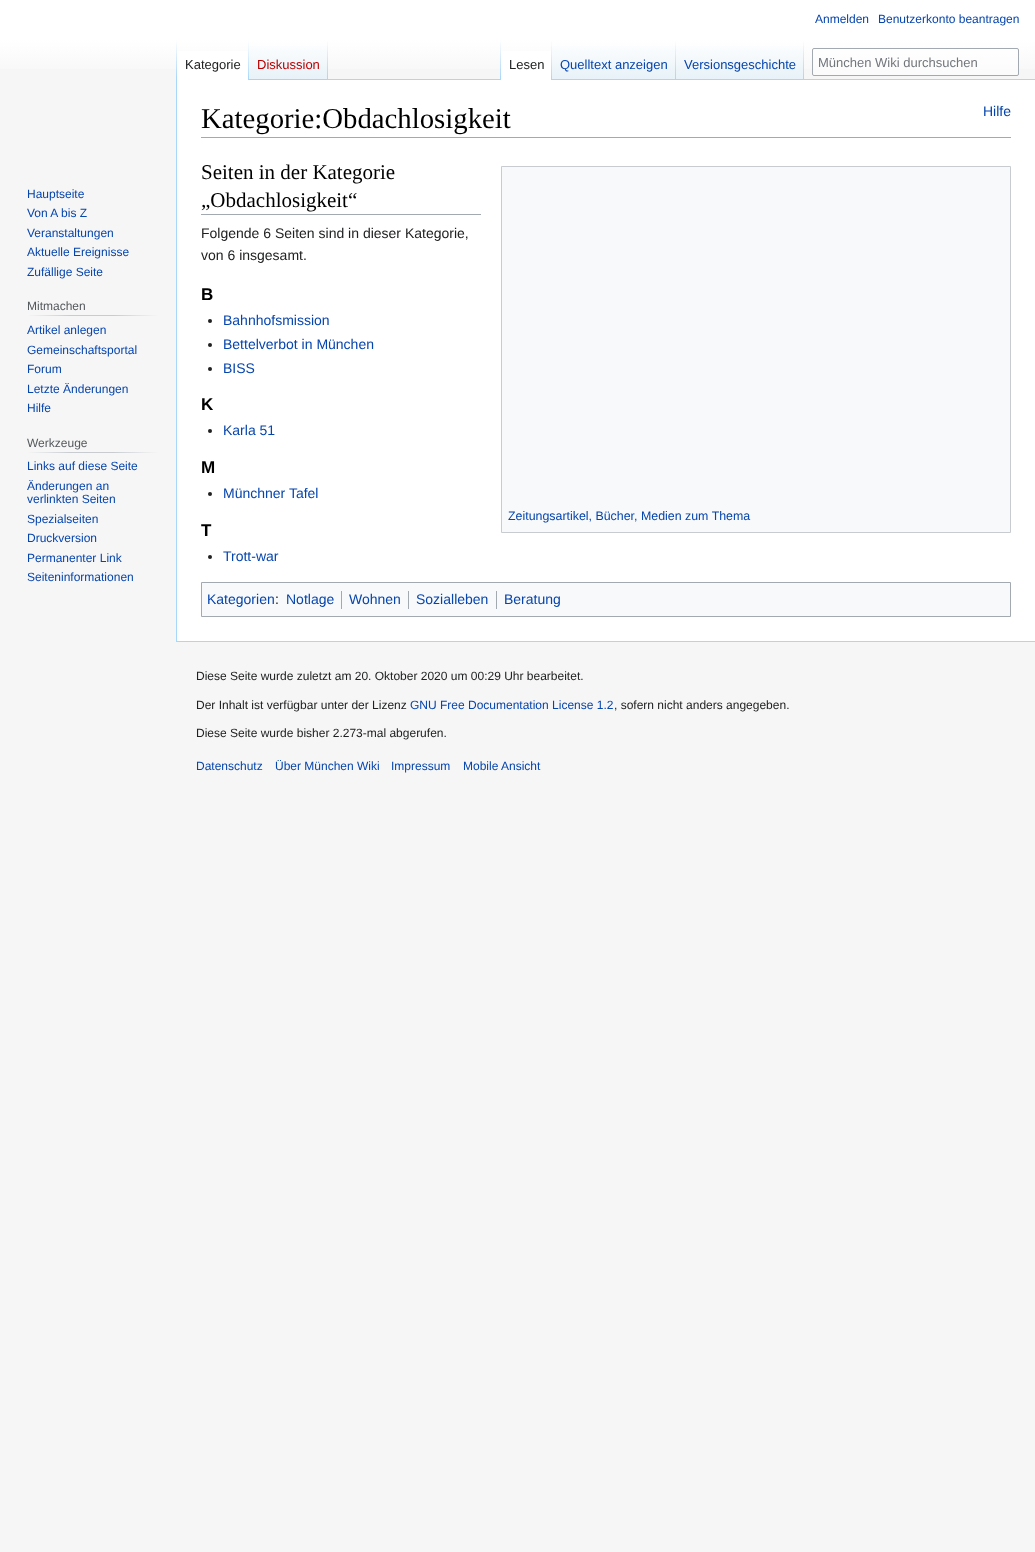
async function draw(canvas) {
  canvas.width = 1035
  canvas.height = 1552
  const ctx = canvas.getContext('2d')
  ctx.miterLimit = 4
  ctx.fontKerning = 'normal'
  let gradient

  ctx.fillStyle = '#f6f6f6'
  ctx.fillRect(0, 0, 1035, 1552)
  gradient = ctx.createLinearGradient(518, 0, 518, 80)
  gradient.addColorStop(0.5, '#fff')
  gradient.addColorStop(1, '#f6f6f6')
  ctx.fillStyle = gradient
  ctx.fillRect(0, 0, 1035, 69)
  ctx.font = '12px Liberation Sans'
  ctx.fillStyle = '#0645ad'
  ctx.fillText('Anmelden', 815, 23)
  ctx.fillText('Benutzerkonto beantragen', 878, 23)
  ctx.fillStyle = '#a7d7f9'
  ctx.fillRect(176, 641, 859, 1)
  ctx.fillRect(176, 79, 1, 563)
  gradient = ctx.createLinearGradient(177, 40, 177, 80)
  gradient.addColorStop(0, '#a7d7f900')
  gradient.addColorStop(1, '#a7d7f9')
  ctx.fillStyle = gradient
  ctx.fillRect(176, 40, 1, 40)
  ctx.fillStyle = '#fff'
  ctx.fillRect(177, 51, 71, 29)
  gradient = ctx.createLinearGradient(249, 40, 249, 80)
  gradient.addColorStop(0, '#fff')
  gradient.addColorStop(1, '#a7d7f9')
  ctx.fillStyle = gradient
  ctx.fillRect(248, 40, 1, 40)
  ctx.font = '13px Liberation Sans'
  ctx.fillStyle = '#202122'
  ctx.fillText('Kategorie', 185, 69)
  gradient = ctx.createLinearGradient(289, 80, 289, 40)
  gradient.addColorStop(0, '#77c1f6')
  gradient.addColorStop(0.03, '#e8f2f8')
  gradient.addColorStop(1, '#fff')
  ctx.fillStyle = gradient
  ctx.fillRect(249, 46, 79, 34)
  gradient = ctx.createLinearGradient(328, 40, 328, 80)
  gradient.addColorStop(0, '#a7d7f900')
  gradient.addColorStop(1, '#a7d7f9')
  ctx.fillStyle = gradient
  ctx.fillRect(327, 40, 1, 40)
  ctx.fillStyle = '#ba0000'
  ctx.fillText('Diskussion', 257, 69)
  ctx.fillStyle = '#a7d7f9'
  ctx.fillRect(328, 79, 707, 1)
  gradient = ctx.createLinearGradient(501, 40, 501, 80)
  gradient.addColorStop(0, '#a7d7f900')
  gradient.addColorStop(1, '#a7d7f9')
  ctx.fillStyle = gradient
  ctx.fillRect(500, 40, 1, 40)
  ctx.fillStyle = '#fff'
  ctx.fillRect(501, 51, 50, 29)
  gradient = ctx.createLinearGradient(552, 40, 552, 80)
  gradient.addColorStop(0, '#fff')
  gradient.addColorStop(1, '#a7d7f9')
  ctx.fillStyle = gradient
  ctx.fillRect(551, 40, 1, 40)
  ctx.fillStyle = '#202122'
  ctx.fillText('Lesen', 509, 69)
  gradient = ctx.createLinearGradient(614, 80, 614, 40)
  gradient.addColorStop(0, '#77c1f6')
  gradient.addColorStop(0.03, '#e8f2f8')
  gradient.addColorStop(1, '#fff')
  ctx.fillStyle = gradient
  ctx.fillRect(552, 46, 124, 33)
  gradient = ctx.createLinearGradient(676, 40, 676, 80)
  gradient.addColorStop(0, '#a7d7f900')
  gradient.addColorStop(1, '#a7d7f9')
  ctx.fillStyle = gradient
  ctx.fillRect(675, 40, 1, 40)
  ctx.fillStyle = '#0645ad'
  ctx.fillText('Quelltext anzeigen', 560, 69)
  gradient = ctx.createLinearGradient(740, 80, 740, 40)
  gradient.addColorStop(0, '#77c1f6')
  gradient.addColorStop(0.03, '#e8f2f8')
  gradient.addColorStop(1, '#fff')
  ctx.fillStyle = gradient
  ctx.fillRect(676, 46, 128, 33)
  gradient = ctx.createLinearGradient(804, 40, 804, 80)
  gradient.addColorStop(0, '#a7d7f900')
  gradient.addColorStop(1, '#a7d7f9')
  ctx.fillStyle = gradient
  ctx.fillRect(803, 40, 1, 40)
  ctx.fillStyle = '#0645ad'
  ctx.fillText('Versionsgeschichte', 684, 69)
  ctx.fillStyle = '#ffffff80'
  ctx.beginPath()
  ctx.roundRect(812.5, 48.5, 206, 27, 1.5)
  ctx.fill()
  ctx.strokeStyle = '#a2a9b1'
  ctx.stroke()
  ctx.fillStyle = '#72777d'
  ctx.fillText('München Wiki durchsuchen', 818, 67)
  ctx.font = '12px Liberation Sans'
  ctx.fillStyle = '#0645ad'
  ctx.fillText('Hauptseite', 27, 198)
  ctx.fillText('Von A bis Z', 27, 217)
  ctx.fillText('Veranstaltungen', 27, 237)
  ctx.fillText('Aktuelle Ereignisse', 27, 256)
  ctx.fillText('Zufällige Seite', 27, 276)
  gradient = ctx.createLinearGradient(27, 316, 158, 316)
  gradient.addColorStop(0, '#f6f6f6')
  gradient.addColorStop(0.33, '#c8ccd1')
  gradient.addColorStop(0.66, '#c8ccd1')
  gradient.addColorStop(1, '#f6f6f6')
  ctx.fillStyle = gradient
  ctx.fillRect(27, 315, 131, 1)
  ctx.fillStyle = '#54595d'
  ctx.fillText('Mitmachen', 27, 310)
  ctx.fillStyle = '#0645ad'
  ctx.fillText('Artikel anlegen', 27, 334)
  ctx.fillText('Gemeinschaftsportal', 27, 354)
  ctx.fillText('Forum', 27, 373)
  ctx.fillText('Letzte Änderungen', 27, 393)
  ctx.fillText('Hilfe', 27, 412)
  gradient = ctx.createLinearGradient(27, 453, 158, 453)
  gradient.addColorStop(0, '#f6f6f6')
  gradient.addColorStop(0.33, '#c8ccd1')
  gradient.addColorStop(0.66, '#c8ccd1')
  gradient.addColorStop(1, '#f6f6f6')
  ctx.fillStyle = gradient
  ctx.fillRect(27, 452, 131, 1)
  ctx.fillStyle = '#54595d'
  ctx.fillText('Werkzeuge', 27, 447)
  ctx.fillStyle = '#0645ad'
  ctx.fillText('Links auf diese Seite', 27, 470)
  ctx.fillText('Änderungen an', 27, 490)
  ctx.fillText('verlinkten Seiten', 27, 503)
  ctx.fillText('Spezialseiten', 27, 523)
  ctx.fillText('Druckversion', 27, 542)
  ctx.fillText('Permanenter Link', 27, 562)
  ctx.fillText('Seiteninformationen', 27, 581)
  ctx.fillStyle = '#fff'
  ctx.fillRect(177, 80, 858, 561)
  ctx.fillStyle = '#a2a9b1'
  ctx.fillRect(201, 137, 810, 1)
  ctx.font = '28.75px Liberation Serif'
  ctx.fillStyle = '#000'
  ctx.fillText('Kategorie:Obdachlosigkeit', 201, 128)
  ctx.font = '14px Liberation Sans'
  ctx.fillStyle = '#0645ad'
  ctx.fillText('Hilfe', 983, 116)
  ctx.fillStyle = '#a2a9b1'
  ctx.fillRect(201, 214, 280, 1)
  ctx.font = '21px Liberation Serif'
  ctx.fillStyle = '#000'
  ctx.fillText('Seiten in der Kategorie', 201, 179)
  ctx.fillText('„Obdachlosigkeit“', 201, 207)
  ctx.font = '14px Liberation Sans'
  ctx.fillStyle = '#202122'
  ctx.fillText('Folgende 6 Seiten sind in dieser Kategorie,', 201, 238)
  ctx.fillText('von 6 insgesamt.', 201, 260)
  ctx.font = 'bold 17px Liberation Sans'
  ctx.fillStyle = '#000'
  ctx.fillText('B', 201, 300)
  ctx.fillStyle = '#202122'
  ctx.beginPath()
  ctx.arc(210, 321, 2, 0, 2 * Math.PI)
  ctx.fill()
  ctx.font = '14px Liberation Sans'
  ctx.fillStyle = '#0645ad'
  ctx.fillText('Bahnhofsmission', 223, 325)
  ctx.fillStyle = '#202122'
  ctx.beginPath()
  ctx.arc(210, 345, 2, 0, 2 * Math.PI)
  ctx.fill()
  ctx.fillStyle = '#0645ad'
  ctx.fillText('Bettelverbot in München', 223, 349)
  ctx.fillStyle = '#202122'
  ctx.beginPath()
  ctx.arc(210, 369, 2, 0, 2 * Math.PI)
  ctx.fill()
  ctx.fillStyle = '#0645ad'
  ctx.fillText('BISS', 223, 373)
  ctx.font = 'bold 17px Liberation Sans'
  ctx.fillStyle = '#000'
  ctx.fillText('K', 201, 410)
  ctx.fillStyle = '#202122'
  ctx.beginPath()
  ctx.arc(210, 431, 2, 0, 2 * Math.PI)
  ctx.fill()
  ctx.font = '14px Liberation Sans'
  ctx.fillStyle = '#0645ad'
  ctx.fillText('Karla 51', 223, 435)
  ctx.font = 'bold 17px Liberation Sans'
  ctx.fillStyle = '#000'
  ctx.fillText('M', 201, 473)
  ctx.fillStyle = '#202122'
  ctx.beginPath()
  ctx.arc(210, 494, 2, 0, 2 * Math.PI)
  ctx.fill()
  ctx.font = '14px Liberation Sans'
  ctx.fillStyle = '#0645ad'
  ctx.fillText('Münchner Tafel', 223, 498)
  ctx.font = 'bold 17px Liberation Sans'
  ctx.fillStyle = '#000'
  ctx.fillText('T', 201, 536)
  ctx.fillStyle = '#202122'
  ctx.beginPath()
  ctx.arc(210, 557, 2, 0, 2 * Math.PI)
  ctx.fill()
  ctx.font = '14px Liberation Sans'
  ctx.fillStyle = '#0645ad'
  ctx.fillText('Trott-war', 223, 561)
  ctx.fillStyle = '#f8f9fa'
  ctx.beginPath()
  ctx.rect(501.5, 166.5, 509, 366)
  ctx.fill()
  ctx.strokeStyle = '#c8ccd1'
  ctx.stroke()
  ctx.font = '12.4px Liberation Sans'
  ctx.fillStyle = '#0645ad'
  ctx.fillText('Zeitungsartikel, Bücher, Medien zum Thema', 508, 520)
  ctx.fillStyle = '#f8f9fa'
  ctx.beginPath()
  ctx.rect(201.5, 582.5, 809, 34)
  ctx.fill()
  ctx.strokeStyle = '#a2a9b1'
  ctx.stroke()
  ctx.font = '14px Liberation Sans'
  ctx.fillStyle = '#0645ad'
  ctx.fillText('Kategorien', 207, 604)
  ctx.fillStyle = '#202122'
  ctx.fillText(':', 275, 604)
  ctx.fillStyle = '#0645ad'
  ctx.fillText('Notlage', 286, 604)
  ctx.fillStyle = '#a2a9b1'
  ctx.fillRect(341, 591, 1, 18)
  ctx.fillStyle = '#0645ad'
  ctx.fillText('Wohnen', 349, 604)
  ctx.fillStyle = '#a2a9b1'
  ctx.fillRect(408, 591, 1, 18)
  ctx.fillStyle = '#0645ad'
  ctx.fillText('Sozialleben', 416, 604)
  ctx.fillStyle = '#a2a9b1'
  ctx.fillRect(496, 591, 1, 18)
  ctx.fillStyle = '#0645ad'
  ctx.fillText('Beratung', 504, 604)
  ctx.font = '12px Liberation Sans'
  ctx.fillStyle = '#202122'
  ctx.fillText('Diese Seite wurde zuletzt am 20. Oktober 2020 um 00:29 Uhr bearbeitet.', 196, 680)
  ctx.fillText('Der Inhalt ist verfügbar unter der Lizenz', 196, 709)
  ctx.fillStyle = '#0645ad'
  ctx.fillText('GNU Free Documentation License 1.2', 410, 709)
  ctx.fillStyle = '#202122'
  ctx.fillText(', sofern nicht anders angegeben.', 614, 709)
  ctx.fillText('Diese Seite wurde bisher 2.273-mal abgerufen.', 196, 737)
  ctx.fillStyle = '#0645ad'
  ctx.fillText('Datenschutz', 196, 770)
  ctx.fillText('Über München Wiki', 275, 770)
  ctx.fillText('Impressum', 391, 770)
  ctx.fillText('Mobile Ansicht', 463, 770)
}

draw(document.querySelector('canvas'))
